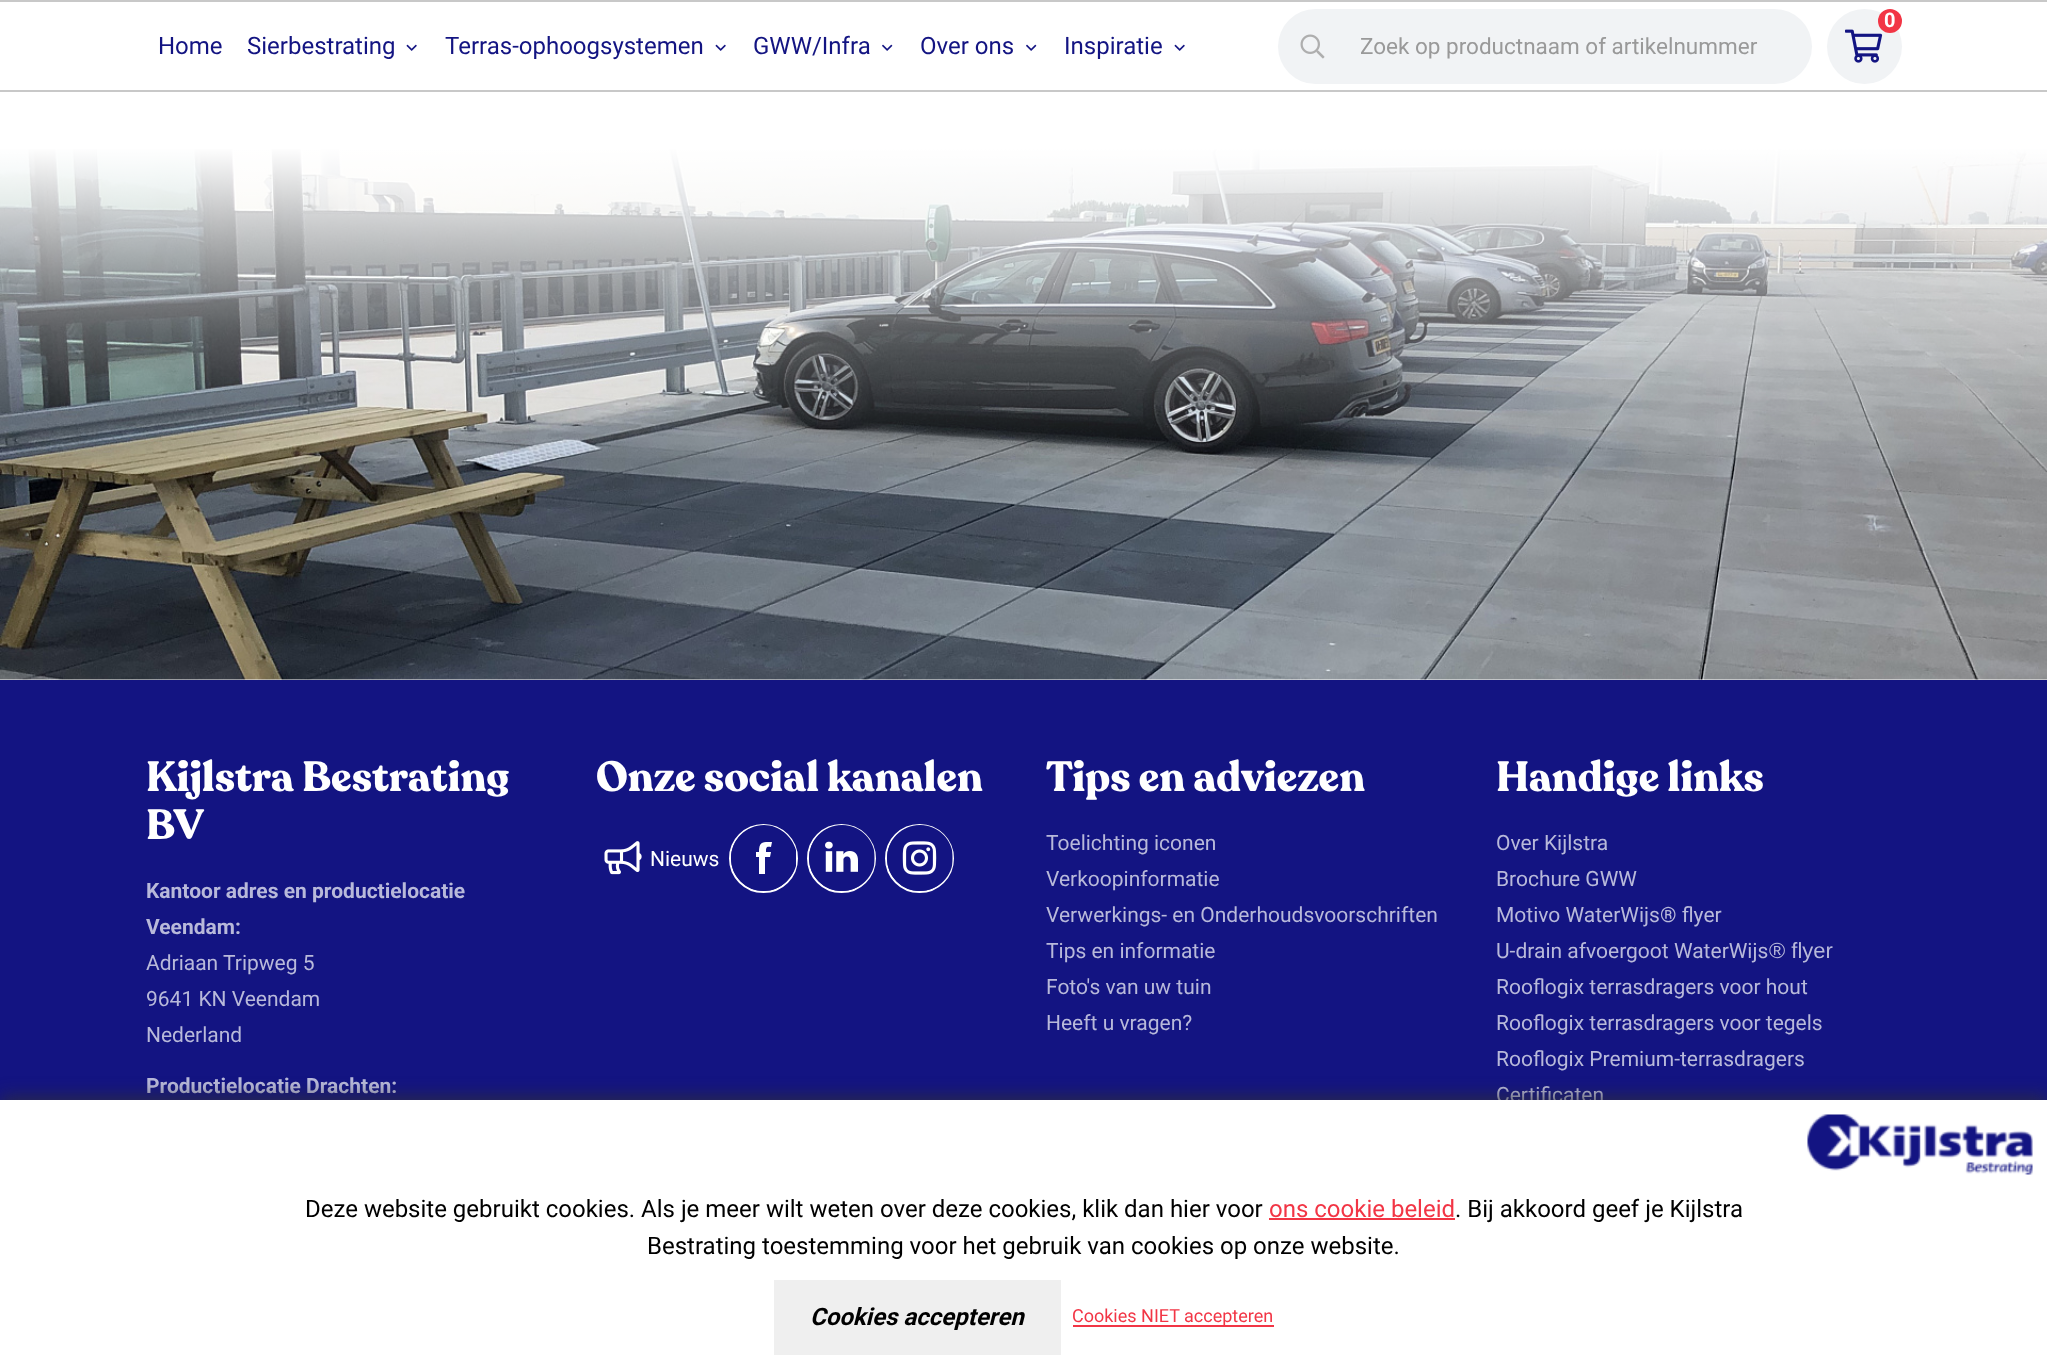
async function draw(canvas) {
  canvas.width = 2047
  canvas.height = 1369
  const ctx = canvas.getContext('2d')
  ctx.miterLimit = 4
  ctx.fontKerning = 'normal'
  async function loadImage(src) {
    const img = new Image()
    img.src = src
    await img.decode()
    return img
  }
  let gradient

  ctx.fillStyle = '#fff'
  ctx.fillRect(0, 0, 2047, 1369)
  ctx.fillStyle = '#c8c8c8'
  ctx.fillRect(0, 0, 2047, 2)
  ctx.fillRect(0, 90, 2047, 2)
  ctx.fillStyle = '#f1f3f5'
  ctx.beginPath()
  ctx.arc(1864.5, 46.5, 37.5, 0, 2 * Math.PI)
  ctx.fill()
  ctx.drawImage(await loadImage('image0.png'), 1845, 29, 38, 34)
  ctx.fillStyle = '#f23545'
  ctx.beginPath()
  ctx.arc(1890, 21, 12, 0, 2 * Math.PI)
  ctx.fill()
  ctx.font = 'bold 20px Roboto'
  ctx.fillStyle = '#fff'
  ctx.fillText('0', 1884, 27)
  ctx.font = '24px Roboto'
  ctx.fillStyle = '#131482'
  ctx.fillText('Home', 158, 54)
  ctx.fillText('Sierbestrating', 247, 54)
  ctx.drawImage(await loadImage('image1.png'), 406, 44, 11, 7)
  ctx.fillText('Terras-ophoogsystemen', 445, 54)
  ctx.drawImage(await loadImage('image1.png'), 715, 44, 11, 7)
  ctx.fillText('GWW/Infra', 753, 54)
  ctx.drawImage(await loadImage('image2.png'), 882, 44, 11, 7)
  ctx.fillText('Over ons', 920, 54)
  ctx.drawImage(await loadImage('image2.png'), 1026, 44, 11, 7)
  ctx.fillText('Inspiratie', 1064, 54)
  ctx.drawImage(await loadImage('image1.png'), 1174, 44, 11, 7)
  ctx.fillStyle = '#f1f3f5'
  ctx.beginPath()
  ctx.roundRect(1278, 9, 534, 75, 37.5)
  ctx.fill()
  ctx.drawImage(await loadImage('image3.png'), 1300, 34, 25, 25)
  ctx.save()
  ctx.beginPath()
  ctx.rect(1361, 33, 429, 27)
  ctx.clip()
  ctx.font = '22.5px Roboto'
  ctx.fillStyle = '#999'
  ctx.fillText('Zoek op productnaam of artikelnummer', 1360, 54)
  ctx.restore()
  ctx.drawImage(await loadImage('image4.png'), 0, 149, 2047, 531)
  gradient = ctx.createLinearGradient(1024, 147, 1024, 680)
  gradient.addColorStop(0, '#fff')
  gradient.addColorStop(0.35, '#ffffff54')
  gradient.addColorStop(0.6, '#ffffff00')
  ctx.fillStyle = gradient
  ctx.fillRect(0, 149, 2047, 309)
  ctx.fillStyle = '#131482'
  ctx.fillRect(0, 680, 2047, 420)
  ctx.font = 'bold 42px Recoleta'
  ctx.fillStyle = '#fff'
  ctx.fillText('Kijlstra Bestrating', 146, 791)
  ctx.fillText('BV', 146, 839)
  ctx.font = 'bold 21px Roboto'
  ctx.fillStyle = '#b8b9da'
  ctx.fillText('Kantoor adres en productielocatie', 146, 898)
  ctx.fillText('Veendam:', 146, 934)
  ctx.font = '21px Roboto'
  ctx.fillText('Adriaan Tripweg 5', 146, 970)
  ctx.fillText('9641 KN Veendam', 146, 1006)
  ctx.fillText('Nederland', 146, 1042)
  ctx.font = 'bold 21px Roboto'
  ctx.fillText('Productielocatie Drachten:', 146, 1093)
  ctx.font = 'bold 42px Recoleta'
  ctx.fillStyle = '#fff'
  ctx.fillText('Onze social kanalen', 596, 791)
  ctx.drawImage(await loadImage('image5.png'), 604, 841, 38, 34)
  ctx.font = '21px Roboto'
  ctx.fillText('Nieuws', 650, 866)
  ctx.beginPath()
  ctx.arc(763.5, 858.5, 33.5, 0, 2 * Math.PI)
  ctx.strokeStyle = '#fff'
  ctx.lineWidth = 2
  ctx.stroke()
  ctx.beginPath()
  ctx.arc(764, 858, 30, 0, 2 * Math.PI)
  ctx.fill()
  ctx.fillStyle = '#131482'
  ctx.beginPath()
  ctx.moveTo(764, 825)
  ctx.bezierCurveTo(746, 825, 731, 840, 731, 858)
  ctx.bezierCurveTo(731, 876, 746, 891, 764, 891)
  ctx.bezierCurveTo(779, 891, 792, 880, 796, 866)
  ctx.lineTo(796, 850)
  ctx.bezierCurveTo(792, 836, 779, 825, 764, 825)
  ctx.closePath()
  ctx.moveTo(771, 852)
  ctx.lineTo(766, 852)
  ctx.bezierCurveTo(766, 848, 766, 846, 771, 847)
  ctx.lineTo(772, 842)
  ctx.bezierCurveTo(763, 842, 759, 841, 759, 852)
  ctx.lineTo(756, 852)
  ctx.lineTo(756, 857)
  ctx.lineTo(759, 857)
  ctx.lineTo(759, 874)
  ctx.lineTo(765, 874)
  ctx.lineTo(765, 857)
  ctx.lineTo(770, 857)
  ctx.closePath()
  ctx.fill('evenodd')
  ctx.beginPath()
  ctx.arc(841.5, 858.5, 33.5, 0, 2 * Math.PI)
  ctx.stroke()
  ctx.fillStyle = '#fff'
  ctx.beginPath()
  ctx.arc(842, 858, 30, 0, 2 * Math.PI)
  ctx.fill()
  ctx.drawImage(await loadImage('image6.png'), 809, 825, 66, 66)
  ctx.beginPath()
  ctx.arc(919.5, 858.5, 33.5, 0, 2 * Math.PI)
  ctx.stroke()
  ctx.beginPath()
  ctx.arc(920, 858, 30, 0, 2 * Math.PI)
  ctx.fill()
  ctx.drawImage(await loadImage('image7.png'), 887, 825, 66, 66)
  ctx.font = 'bold 42px Recoleta'
  ctx.fillText('Tips en adviezen', 1046, 791)
  ctx.font = '21px Roboto'
  ctx.fillStyle = '#b8b9da'
  ctx.fillText('Toelichting iconen', 1046, 850)
  ctx.fillText('Verkoopinformatie', 1046, 886)
  ctx.fillText('Verwerkings- en Onderhoudsvoorschriften', 1046, 922)
  ctx.fillText('Tips en informatie', 1046, 958)
  ctx.fillText('Foto\'s van uw tuin', 1046, 994)
  ctx.fillText('Heeft u vragen?', 1046, 1030)
  ctx.font = 'bold 42px Recoleta'
  ctx.fillStyle = '#fff'
  ctx.fillText('Handige links', 1496, 791)
  ctx.font = '21px Roboto'
  ctx.fillStyle = '#b8b9da'
  ctx.fillText('Over Kijlstra', 1496, 850)
  ctx.fillText('Brochure GWW', 1496, 886)
  ctx.fillText('Motivo WaterWijs® flyer', 1496, 922)
  ctx.fillText('U-drain afvoergoot WaterWijs', 1496, 958)
  ctx.font = '22px Liberation Sans'
  ctx.fillText('® flyer', 1769, 958)
  ctx.font = '21px Roboto'
  ctx.fillText('Rooflogix terrasdragers voor hout', 1496, 994)
  ctx.fillText('Rooflogix terrasdragers voor tegels', 1496, 1030)
  ctx.fillText('Rooflogix Premium-terrasdragers', 1496, 1066)
  ctx.fillText('Certificaten', 1496, 1102)
  ctx.fillStyle = '#323232bf'
  ctx.filter = 'blur(9px)'
  ctx.beginPath()
  ctx.rect(0, 1097, 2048, 270)
  ctx.fill()
  ctx.filter = 'none'
  ctx.fillStyle = '#fff'
  ctx.fillRect(0, 1100, 2047, 269)
  ctx.drawImage(await loadImage('image8.png'), 1807, 1114, 226, 61)
  ctx.font = '24px Roboto'
  ctx.fillStyle = '#000'
  ctx.fillText('Deze website gebruikt cookies. Als je meer wilt weten over deze cookies, klik dan hier voor', 305, 1217)
  ctx.fillStyle = '#f23545'
  ctx.fillText('ons cookie beleid', 1269, 1217)
  ctx.fillRect(1269, 1218, 186, 2)
  ctx.fillStyle = '#000'
  ctx.fillText('. Bij akkoord geef je Kijlstra', 1455, 1217)
  ctx.fillText('Bestrating toestemming voor het gebruik van cookies op onze website.', 647, 1254)
  ctx.fillStyle = '#efefef'
  ctx.fillRect(774, 1280, 287, 75)
  ctx.font = 'italic bold 24px Roboto'
  ctx.fillStyle = '#000'
  ctx.fillText('Cookies accepteren', 810, 1325)
  ctx.fillStyle = '#f23545'
  ctx.fillRect(1073, 1325, 201, 2)
  ctx.font = '18px Roboto'
  ctx.fillText('Cookies NIET accepteren', 1072, 1322)
}

draw(document.querySelector('canvas'))
